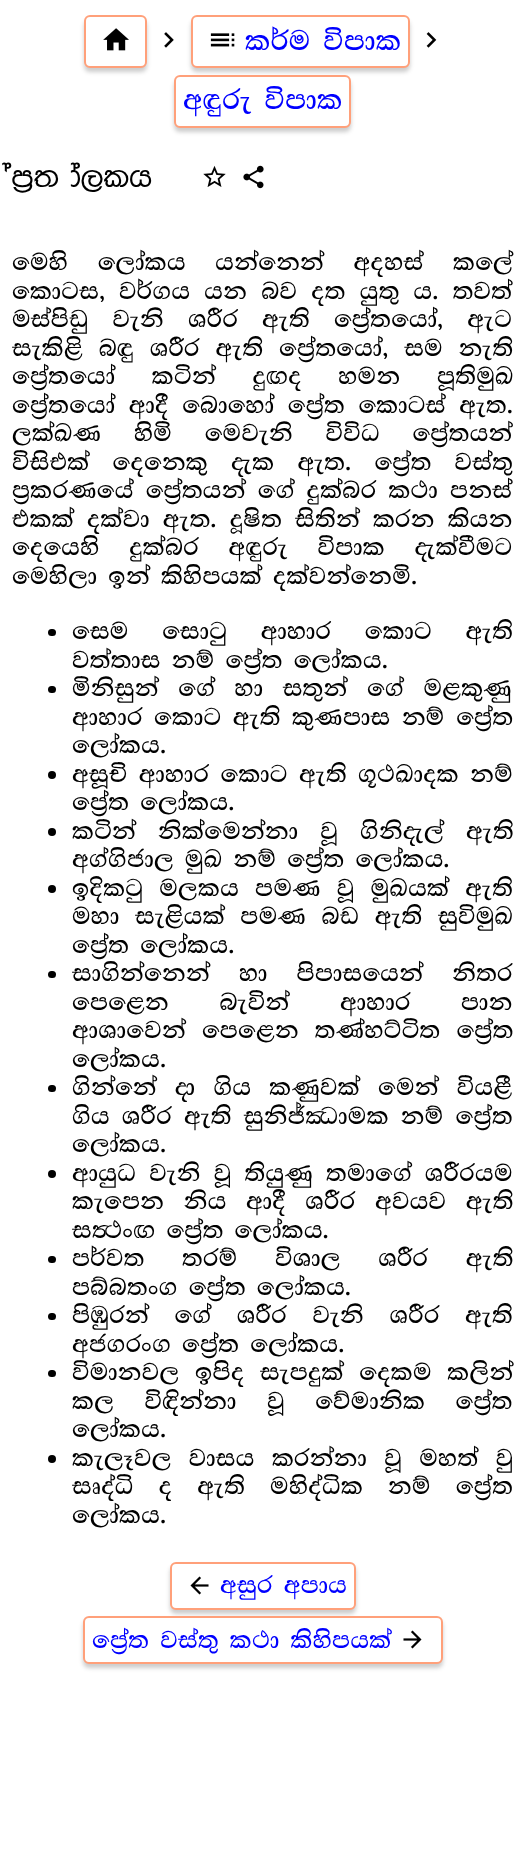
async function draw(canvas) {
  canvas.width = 524
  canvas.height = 1855
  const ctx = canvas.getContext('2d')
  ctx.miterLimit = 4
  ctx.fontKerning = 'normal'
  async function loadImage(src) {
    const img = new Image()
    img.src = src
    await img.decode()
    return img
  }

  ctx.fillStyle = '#fff'
  ctx.fillRect(0, 0, 524, 1855)
  ctx.fillStyle = '#00000033'
  ctx.filter = 'blur(2px)'
  ctx.beginPath()
  ctx.roundRect(84, 20, 63, 52, 6)
  ctx.fill()
  ctx.filter = 'none'
  ctx.fillStyle = '#fff'
  ctx.beginPath()
  ctx.roundRect(85, 16, 61, 51, 5)
  ctx.fill()
  ctx.strokeStyle = '#ffa07a'
  ctx.lineWidth = 2
  ctx.stroke()
  ctx.drawImage(await loadImage('image0.png'), 103, 28, 26, 23)
  ctx.drawImage(await loadImage('image1.png'), 164, 32, 10, 16)
  ctx.fillStyle = '#00000033'
  ctx.filter = 'blur(2px)'
  ctx.beginPath()
  ctx.roundRect(191, 20, 219, 52, 6)
  ctx.fill()
  ctx.filter = 'none'
  ctx.fillStyle = '#fff'
  ctx.beginPath()
  ctx.roundRect(192, 16, 217, 51, 5)
  ctx.fill()
  ctx.stroke()
  ctx.drawImage(await loadImage('image2.png'), 210, 33, 25, 14)
  ctx.font = '300 31.25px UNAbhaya'
  ctx.fillStyle = '#00f'
  ctx.fillText('කර්ම විපාක', 245, 50)
  ctx.drawImage(await loadImage('image3.png'), 426, 32, 11, 16)
  ctx.fillStyle = '#00000033'
  ctx.filter = 'blur(2px)'
  ctx.beginPath()
  ctx.roundRect(174, 80, 177, 52, 6)
  ctx.fill()
  ctx.filter = 'none'
  ctx.fillStyle = '#fff'
  ctx.beginPath()
  ctx.roundRect(175, 76, 175, 51, 5)
  ctx.fill()
  ctx.stroke()
  ctx.fillStyle = '#00f'
  ctx.fillText('අඳුරු විපාක', 183, 109)
  ctx.font = '33.5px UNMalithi'
  ctx.fillStyle = '#000'
  ctx.fillText('ප්‍රේත ලෝකය', 12, 187)
  ctx.drawImage(await loadImage('image4.png'), 203, 165, 23, 22)
  ctx.drawImage(await loadImage('image5.png'), 243, 165, 21, 24)
  ctx.wordSpacing = '18.5px'
  ctx.font = '300 27px UNAbhaya'
  ctx.fillText('මෙහි ලෝකය යන්නෙන් අදහස් කලේ', 12, 270)
  ctx.wordSpacing = '3px'
  ctx.fillText('කොටස, වර්ගය යන බව දත යුතු ය. තවත්', 12, 299)
  ctx.wordSpacing = '13px'
  ctx.fillText('මස්පිඩු වැනි ශරීර ඇති ප්‍රේතයෝ, ඇට', 12, 327)
  ctx.wordSpacing = '4.75px'
  ctx.fillText('සැකිළි බඳු ශරීර ඇති ප්‍රේතයෝ, සම නැති', 12, 356)
  ctx.wordSpacing = '25.5px'
  ctx.fillText('ප්‍රේතයෝ කටින් දුඟද හමන පූතිමුඛ', 12, 384)
  ctx.wordSpacing = '2.5px'
  ctx.fillText('ප්‍රේතයෝ ආදී බොහෝ ප්‍රේත කොටස් ඇත.', 12, 413)
  ctx.wordSpacing = '21.5px'
  ctx.fillText('ලක්ඛණ හිමි මෙවැනි විවිධ ප්‍රේතයන්', 12, 441)
  ctx.wordSpacing = '12px'
  ctx.fillText('විසිඑක් දෙනෙකු දැක ඇත. ප්‍රේත වස්තු', 12, 470)
  ctx.wordSpacing = '1px'
  ctx.fillText('ප්‍රකරණයේ ප්‍රේතයන් ගේ දුක්බර කථා පනස්', 12, 498)
  ctx.wordSpacing = '2px'
  ctx.fillText('එකක් දක්වා ඇත. දූෂිත සිතින් කරන කියන', 12, 527)
  ctx.wordSpacing = '18.5px'
  ctx.fillText('දෙයෙහි දුක්බර අඳුරු විපාක දැක්වීමට', 12, 555)
  ctx.wordSpacing = '0px'
  ctx.fillText('මෙහිලා ඉන් කිහිපයක් දක්වන්නෙමි.', 12, 584)
  ctx.beginPath()
  ctx.roundRect(48, 629, 8, 7, 3.5)
  ctx.fill()
  ctx.wordSpacing = '22.5px'
  ctx.fillText('සෙම සොටු ආහාර කොට ඇති', 72, 639)
  ctx.wordSpacing = '0px'
  ctx.fillText('වත්තාස නම් ප්‍රේත ලෝකය.', 72, 668)
  ctx.beginPath()
  ctx.roundRect(48, 686, 8, 7, 3.5)
  ctx.fill()
  ctx.wordSpacing = '8.5px'
  ctx.fillText('මිනිසුන් ගේ හා සතුන් ගේ මළකුණු', 72, 696)
  ctx.wordSpacing = '0.5px'
  ctx.fillText('ආහාර කොට ඇති කුණපාස නම් ප්‍රේත', 72, 725)
  ctx.wordSpacing = '0px'
  ctx.fillText('ලෝකය.', 72, 753)
  ctx.beginPath()
  ctx.arc(52, 775, 4, 0, 2 * Math.PI)
  ctx.fill()
  ctx.wordSpacing = '0.25px'
  ctx.fillText('අසූචි ආහාර කොට ඇති ගූථඛාදක නම්', 72, 782)
  ctx.wordSpacing = '0px'
  ctx.fillText('ප්‍රේත ලෝකය.', 72, 810)
  ctx.beginPath()
  ctx.arc(52, 832, 4, 0, 2 * Math.PI)
  ctx.fill()
  ctx.wordSpacing = '11px'
  ctx.fillText('කටින් නික්මෙන්නා වූ ගිනිදැල් ඇති', 72, 839)
  ctx.wordSpacing = '0px'
  ctx.fillText('අග්ගිජාල මුඛ නම් ප්‍රේත ලෝකය.', 72, 867)
  ctx.beginPath()
  ctx.arc(52, 889, 4, 0, 2 * Math.PI)
  ctx.fill()
  ctx.wordSpacing = '5px'
  ctx.fillText('ඉදිකටු මලකය පමණ වූ මුඛයක් ඇති', 72, 896)
  ctx.wordSpacing = '4.5px'
  ctx.fillText('මහා සැළියක් පමණ බඩ ඇති සුවිමුඛ', 72, 924)
  ctx.wordSpacing = '0px'
  ctx.fillText('ප්‍රේත ලෝකය.', 72, 953)
  ctx.beginPath()
  ctx.roundRect(48, 971, 8, 7, 3.5)
  ctx.fill()
  ctx.wordSpacing = '18px'
  ctx.fillText('සාගින්නෙන් හා පිපාසයෙන් නිතර', 72, 981)
  ctx.wordSpacing = '39.5px'
  ctx.fillText('පෙළෙන බැවින් ආහාර පාන', 72, 1010)
  ctx.wordSpacing = '5px'
  ctx.fillText('ආශාවෙන් පෙළෙන තණ්හට්ටිත ප්‍රේත', 72, 1038)
  ctx.wordSpacing = '0px'
  ctx.fillText('ලෝකය.', 72, 1067)
  ctx.beginPath()
  ctx.roundRect(48, 1085, 8, 7, 3.5)
  ctx.fill()
  ctx.wordSpacing = '7px'
  ctx.fillText('ගින්නේ දා ගිය කණුවක් මෙන් වියළී', 72, 1095)
  ctx.wordSpacing = '1px'
  ctx.fillText('ගිය ශරීර ඇති සුනිජ්ඣාමක නම් ප්‍රේත', 72, 1124)
  ctx.wordSpacing = '0px'
  ctx.fillText('ලෝකය.', 72, 1152)
  ctx.beginPath()
  ctx.arc(52, 1174, 4, 0, 2 * Math.PI)
  ctx.fill()
  ctx.wordSpacing = '2px'
  ctx.fillText('ආයුධ වැනි වූ තියුණු තමාගේ ශරීරයම', 72, 1181)
  ctx.wordSpacing = '8.5px'
  ctx.fillText('කැපෙන නිය ආදී ශරීර අවයව ඇති', 72, 1209)
  ctx.wordSpacing = '0px'
  ctx.fillText('සත්‍ථංඟ ප්‍රේත ලෝකය.', 72, 1238)
  ctx.beginPath()
  ctx.roundRect(48, 1256, 8, 7, 3.5)
  ctx.fill()
  ctx.wordSpacing = '26.5px'
  ctx.fillText('පර්වත තරම් විශාල ශරීර ඇති', 72, 1266)
  ctx.wordSpacing = '0px'
  ctx.fillText('පබ්බතංග ප්‍රේත ලෝකය.', 72, 1295)
  ctx.beginPath()
  ctx.roundRect(48, 1313, 8, 7, 3.5)
  ctx.fill()
  ctx.wordSpacing = '14.5px'
  ctx.fillText('පිඹුරන් ගේ ශරීර වැනි ශරීර ඇති', 72, 1323)
  ctx.wordSpacing = '0px'
  ctx.fillText('අජගරංග ප්‍රේත ලෝකය.', 72, 1352)
  ctx.beginPath()
  ctx.roundRect(48, 1370, 8, 7, 3.5)
  ctx.fill()
  ctx.wordSpacing = '4.5px'
  ctx.fillText('විමානවල ඉපිද සැපදුක් දෙකම කලින්', 72, 1380)
  ctx.wordSpacing = '19.5px'
  ctx.fillText('කල විඳින්නා වූ වේමානික ප්‍රේත', 72, 1409)
  ctx.wordSpacing = '0px'
  ctx.fillText('ලෝකය.', 72, 1437)
  ctx.beginPath()
  ctx.arc(52, 1459, 4, 0, 2 * Math.PI)
  ctx.fill()
  ctx.wordSpacing = '6.25px'
  ctx.fillText('කැලෑවල වාසය කරන්නා වූ මහත් වු', 72, 1466)
  ctx.wordSpacing = '14px'
  ctx.fillText('සෘද්ධි ද ඇති මහිද්ධික නම් ප්‍රේත', 72, 1494)
  ctx.wordSpacing = '0px'
  ctx.fillText('ලෝකය.', 72, 1523)
  ctx.fillStyle = '#00000033'
  ctx.filter = 'blur(2px)'
  ctx.beginPath()
  ctx.roundRect(170, 1566, 186, 48, 6)
  ctx.fill()
  ctx.filter = 'none'
  ctx.fillStyle = '#fff'
  ctx.beginPath()
  ctx.roundRect(171, 1563, 184, 46, 5)
  ctx.fill()
  ctx.stroke()
  ctx.drawImage(await loadImage('image6.png'), 190, 1576, 19, 19)
  ctx.fillStyle = '#00f'
  ctx.fillText('අසුර අපාය', 220, 1593)
  ctx.fillStyle = '#00000033'
  ctx.filter = 'blur(2px)'
  ctx.beginPath()
  ctx.roundRect(83, 1620, 360, 48, 6)
  ctx.fill()
  ctx.filter = 'none'
  ctx.fillStyle = '#fff'
  ctx.beginPath()
  ctx.roundRect(84, 1617, 358, 46, 5)
  ctx.fill()
  ctx.stroke()
  ctx.fillStyle = '#00f'
  ctx.fillText('ප්‍රේත වස්තු කථා කිහිපයක්', 92, 1648)
  ctx.drawImage(await loadImage('image7.png'), 403, 1630, 19, 19)
}

draw(document.querySelector('canvas'))
